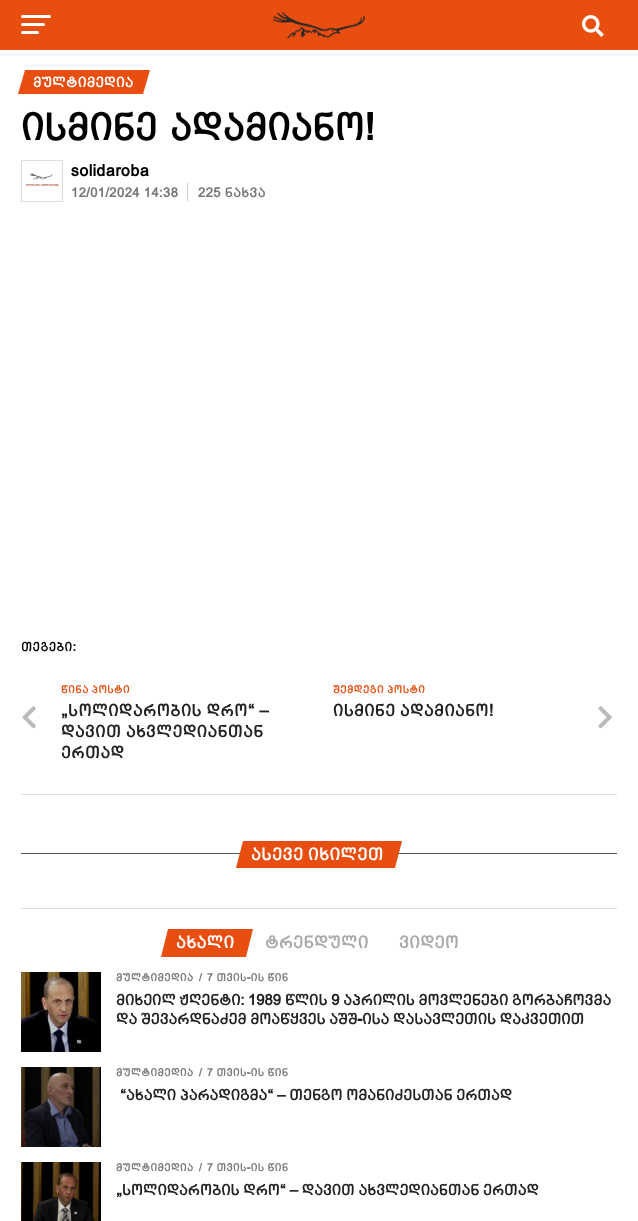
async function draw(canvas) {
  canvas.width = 638
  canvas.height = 1221
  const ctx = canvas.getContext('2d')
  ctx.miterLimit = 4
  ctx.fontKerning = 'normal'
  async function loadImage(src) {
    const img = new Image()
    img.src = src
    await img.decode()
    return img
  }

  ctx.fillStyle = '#fff'
  ctx.fillRect(0, 0, 638, 1221)
  ctx.fillStyle = '#e74e0f'
  ctx.fillRect(0, 0, 638, 50)
  ctx.fillStyle = '#fff'
  ctx.beginPath()
  ctx.roundRect(21, 15, 30, 3, 1.5)
  ctx.fill()
  ctx.beginPath()
  ctx.roundRect(21, 23, 24, 3, 1.5)
  ctx.fill()
  ctx.beginPath()
  ctx.roundRect(21, 31, 18, 3, 1.5)
  ctx.fill()
  ctx.drawImage(await loadImage('image0.png'), 273, 11, 92, 28)
  ctx.drawImage(await loadImage('image1.png'), 582, 15, 22, 22)
  ctx.fillStyle = '#e74e0f'
  ctx.beginPath()
  ctx.moveTo(25, 70)
  ctx.lineTo(150, 70)
  ctx.lineTo(143, 94)
  ctx.lineTo(18, 94)
  ctx.closePath()
  ctx.fill()
  ctx.letterSpacing = '-0.3px'
  ctx.font = '800 15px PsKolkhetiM'
  ctx.fillStyle = '#fff'
  ctx.fillText('მულტიმედია', 33, 87)
  ctx.letterSpacing = '-1.6px'
  ctx.wordSpacing = '3px'
  ctx.font = '800 40px PsKolkhetiM'
  ctx.fillStyle = '#000'
  ctx.fillText('ისმინე ადამიანო!', 21, 140)
  ctx.strokeStyle = '#ddd'
  ctx.strokeRect(21.5, 160.5, 41, 41)
  ctx.drawImage(await loadImage('image2.png'), 25, 173, 36, 15)
  ctx.letterSpacing = '0px'
  ctx.wordSpacing = '0px'
  ctx.font = '800 17px PsKolkhetiM'
  ctx.fillText('solidaroba', 71, 176)
  ctx.letterSpacing = '-0.1px'
  ctx.font = '800 14px PsKolkhetiM'
  ctx.fillStyle = '#757878'
  ctx.fillText('12/01/2024 14:38', 71, 197)
  ctx.fillText('225 ნახვა', 198, 197)
  ctx.fillStyle = '#ccc'
  ctx.fillRect(187, 183, 1, 18)
  ctx.letterSpacing = '0px'
  ctx.font = '800 13px PsKolkhetiM'
  ctx.fillStyle = '#000'
  ctx.fillText('თეგები:', 21, 651)
  ctx.fillStyle = '#ddd'
  ctx.fillRect(21, 794, 596, 1)
  ctx.drawImage(await loadImage('image3.png'), 22, 706, 14, 23)
  ctx.font = '800 11.25px PsKolkhetiM'
  ctx.fillStyle = '#e74e0f'
  ctx.fillText('წინა პოსტი', 61, 693)
  ctx.letterSpacing = '-0.3px'
  ctx.font = '800 17.6px PsKolkhetiM'
  ctx.fillStyle = '#222'
  ctx.fillText('“სოლიდარობის დრო” –', 61, 716)
  ctx.fillText('დავით ახვლედიანთან', 61, 737)
  ctx.fillText('ერთად', 61, 758)
  ctx.letterSpacing = '0px'
  ctx.font = '800 11.25px PsKolkhetiM'
  ctx.fillStyle = '#e74e0f'
  ctx.fillText('შემდეგი პოსტი', 333, 693)
  ctx.letterSpacing = '-0.3px'
  ctx.font = '800 17.6px PsKolkhetiM'
  ctx.fillStyle = '#222'
  ctx.fillText('ისმინე ადამიანო!', 333, 716)
  ctx.drawImage(await loadImage('image4.png'), 598, 706, 14, 23)
  ctx.fillStyle = '#555'
  ctx.fillRect(21, 853, 596, 1)
  ctx.fillStyle = '#e74e0f'
  ctx.beginPath()
  ctx.moveTo(243, 841)
  ctx.lineTo(402, 841)
  ctx.lineTo(395, 868)
  ctx.lineTo(236, 868)
  ctx.closePath()
  ctx.fill()
  ctx.letterSpacing = '-0.4px'
  ctx.font = '800 18.25px PsKolkhetiM'
  ctx.fillStyle = '#fff'
  ctx.fillText('ასევე იხილეთ', 251, 860)
  ctx.fillStyle = '#ddd'
  ctx.fillRect(21, 908, 596, 1)
  ctx.fillStyle = '#e74e0f'
  ctx.beginPath()
  ctx.moveTo(168, 929)
  ctx.lineTo(253, 929)
  ctx.lineTo(246, 957)
  ctx.lineTo(161, 957)
  ctx.closePath()
  ctx.fill()
  ctx.letterSpacing = '-0.5px'
  ctx.fillStyle = '#fff'
  ctx.fillText('ახალი', 176, 948)
  ctx.fillStyle = '#aaa'
  ctx.fillText('ტრენდული', 265, 948)
  ctx.fillText('ვიდეო', 399, 948)
  ctx.fillStyle = '#000'
  ctx.fillRect(21, 972, 80, 80)
  ctx.drawImage(await loadImage('image5.png'), 21, 972, 76, 80)
  ctx.letterSpacing = '0px'
  ctx.font = '800 11.25px PsKolkhetiM'
  ctx.fillStyle = '#757878'
  ctx.fillText('მულტიმედია', 116, 981)
  ctx.fillText('/', 199, 981)
  ctx.fillText('7 თვის-ის წინ', 207, 981)
  ctx.letterSpacing = '-0.65px'
  ctx.font = '800 16px PsKolkhetiM'
  ctx.fillStyle = '#222'
  ctx.fillText('მიხეილ ჟღენტი: 1989 წლის 9 აპრილის მოვლენები გორბაჩოვმა', 116, 1005)
  ctx.fillText('და შევარდნაძემ მოაწყვეს აშშ-ისა დასავლეთის დაკვეთით', 116, 1024)
  ctx.fillStyle = '#000'
  ctx.fillRect(21, 1067, 80, 80)
  ctx.drawImage(await loadImage('image6.png'), 21, 1067, 79, 80)
  ctx.letterSpacing = '0px'
  ctx.font = '800 11.25px PsKolkhetiM'
  ctx.fillStyle = '#757878'
  ctx.fillText('მულტიმედია', 116, 1076)
  ctx.fillText('/', 199, 1076)
  ctx.fillText('7 თვის-ის წინ', 207, 1076)
  ctx.letterSpacing = '-0.65px'
  ctx.font = '800 16px PsKolkhetiM'
  ctx.fillStyle = '#222'
  ctx.fillText('”ახალი პარადიგმა” – თენგო ომანიძესთან ერთად', 120, 1100)
  ctx.fillStyle = '#000'
  ctx.fillRect(21, 1162, 80, 59)
  ctx.drawImage(await loadImage('image7.png'), 21, 1162, 79, 59)
  ctx.letterSpacing = '0px'
  ctx.font = '800 11.25px PsKolkhetiM'
  ctx.fillStyle = '#757878'
  ctx.fillText('მულტიმედია', 116, 1171)
  ctx.fillText('/', 199, 1171)
  ctx.fillText('7 თვის-ის წინ', 207, 1171)
  ctx.letterSpacing = '-0.65px'
  ctx.font = '800 16px PsKolkhetiM'
  ctx.fillStyle = '#222'
  ctx.fillText('“სოლიდარობის დრო” – დავით ახვლედიანთან ერთად', 116, 1195)
}

draw(document.querySelector('canvas'))
